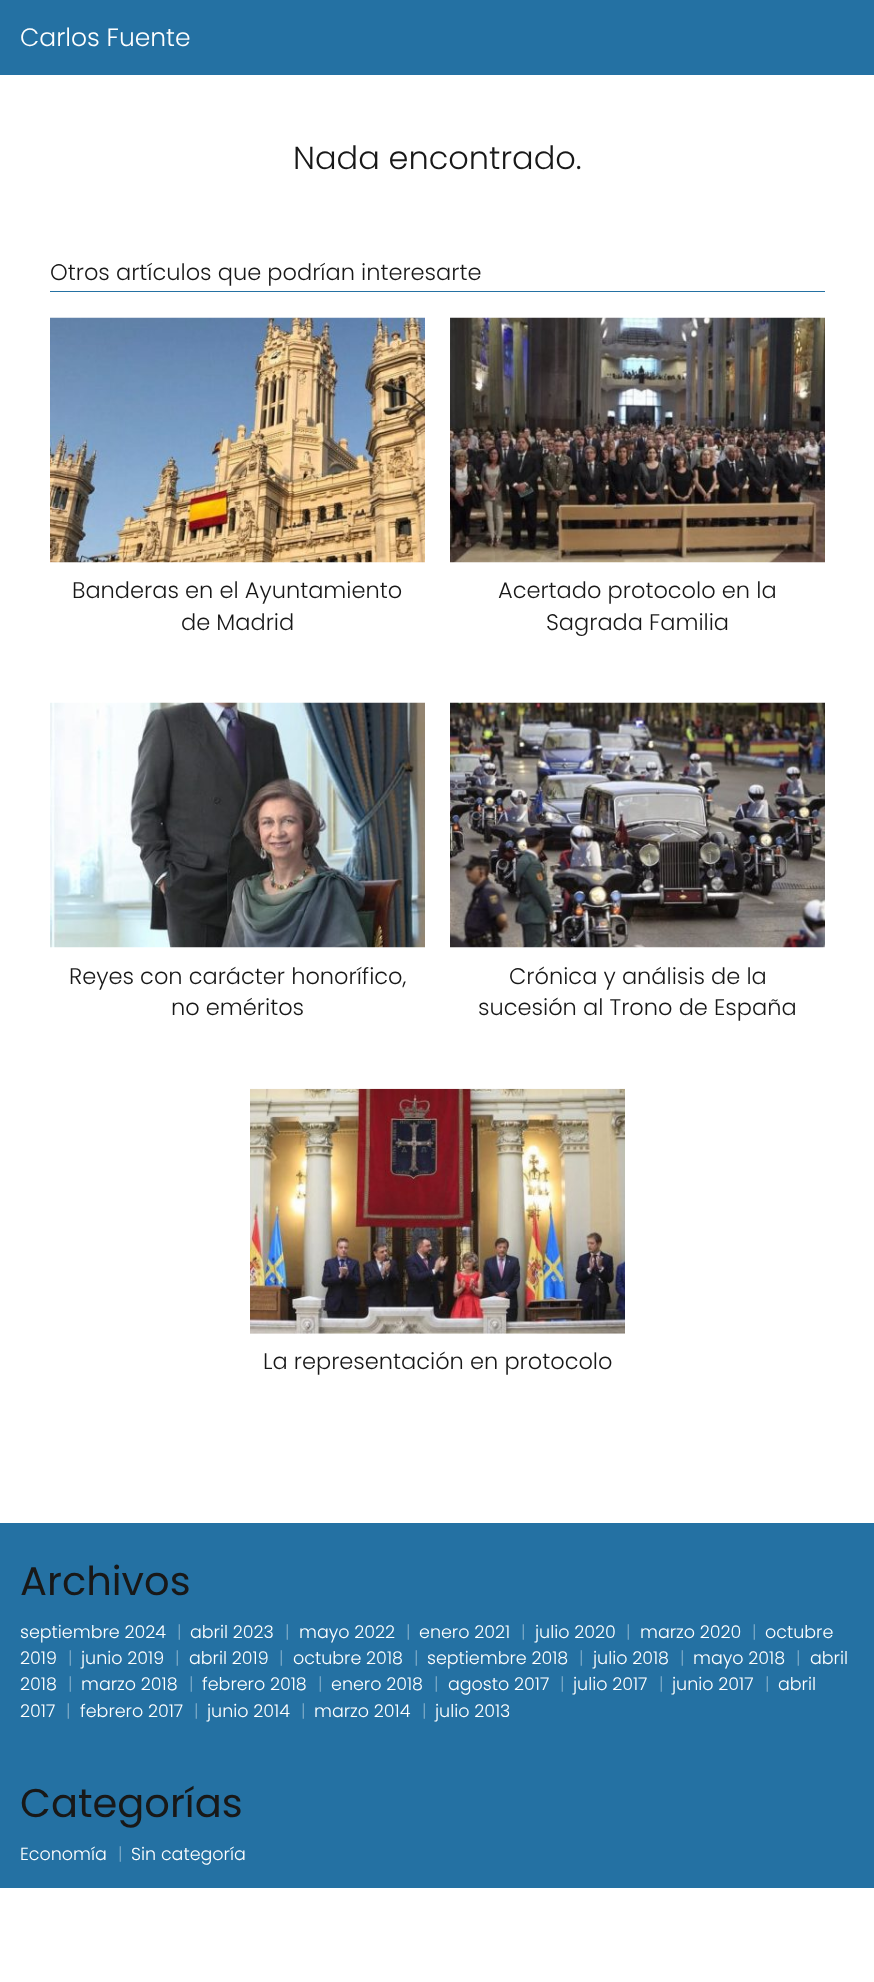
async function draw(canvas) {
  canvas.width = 874
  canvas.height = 1982
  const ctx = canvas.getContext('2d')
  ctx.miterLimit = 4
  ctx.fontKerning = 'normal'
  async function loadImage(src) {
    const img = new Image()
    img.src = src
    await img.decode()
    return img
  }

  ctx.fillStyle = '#fff'
  ctx.fillRect(0, 0, 874, 1982)
  ctx.fillStyle = '#2471a3'
  ctx.fillRect(0, 0, 874, 75)
  ctx.font = '300 25px Poppins'
  ctx.fillStyle = '#fff'
  ctx.fillText('Carlos Fuente', 20, 46)
  ctx.font = '300 32px Poppins'
  ctx.fillStyle = '#181818'
  ctx.fillText('Nada encontrado.', 293, 169)
  ctx.fillStyle = '#2471a3'
  ctx.fillRect(50, 291, 775, 1)
  ctx.font = '300 22.5px Poppins'
  ctx.fillStyle = '#181818'
  ctx.fillText('Otros artículos que podrían interesarte', 50, 280)
  ctx.drawImage(await loadImage('image0.png'), 50, 317, 375, 246)
  ctx.fillText('Banderas en el Ayuntamiento', 72, 598)
  ctx.fillText('de Madrid', 181, 630)
  ctx.drawImage(await loadImage('image1.png'), 450, 317, 375, 246)
  ctx.fillText('Acertado protocolo en la', 498, 598)
  ctx.fillText('Sagrada Familia', 546, 630)
  ctx.drawImage(await loadImage('image2.png'), 50, 702, 375, 246)
  ctx.fillText('Reyes con carácter honorífico,', 69, 984)
  ctx.fillText('no eméritos', 171, 1015)
  ctx.drawImage(await loadImage('image3.png'), 450, 702, 375, 246)
  ctx.fillText('Crónica y análisis de la', 509, 984)
  ctx.fillText('sucesión al Trono de España', 478, 1015)
  ctx.drawImage(await loadImage('image4.png'), 250, 1088, 375, 246)
  ctx.fillText('La representación en protocolo', 263, 1369)
  ctx.fillStyle = '#2471a3'
  ctx.fillRect(0, 1523, 874, 365)
  ctx.font = '40px Poppins'
  ctx.fillStyle = '#181818'
  ctx.fillText('Archivos', 20, 1595)
  ctx.font = '300 17.5px Poppins'
  ctx.fillStyle = '#fff'
  ctx.fillText('septiembre 2024', 20, 1638)
  ctx.fillStyle = '#7caac8'
  ctx.fillText('|', 177, 1638)
  ctx.fillStyle = '#fff'
  ctx.fillText('abril 2023', 190, 1638)
  ctx.fillStyle = '#7caac8'
  ctx.fillText('|', 285, 1638)
  ctx.fillStyle = '#fff'
  ctx.fillText('mayo 2022', 299, 1638)
  ctx.fillStyle = '#7caac8'
  ctx.fillText('|', 406, 1638)
  ctx.fillStyle = '#fff'
  ctx.fillText('enero 2021', 419, 1638)
  ctx.fillStyle = '#7caac8'
  ctx.fillText('|', 521, 1638)
  ctx.fillStyle = '#fff'
  ctx.fillText('julio 2020', 535, 1638)
  ctx.fillStyle = '#7caac8'
  ctx.fillText('|', 626, 1638)
  ctx.fillStyle = '#fff'
  ctx.fillText('marzo 2020', 640, 1638)
  ctx.fillStyle = '#7caac8'
  ctx.fillText('|', 752, 1638)
  ctx.fillStyle = '#fff'
  ctx.fillText('octubre', 765, 1638)
  ctx.fillText('2019', 20, 1664)
  ctx.fillStyle = '#7caac8'
  ctx.fillText('|', 68, 1664)
  ctx.fillStyle = '#fff'
  ctx.fillText('junio 2019', 81, 1664)
  ctx.fillStyle = '#7caac8'
  ctx.fillText('|', 175, 1664)
  ctx.fillStyle = '#fff'
  ctx.fillText('abril 2019', 189, 1664)
  ctx.fillStyle = '#7caac8'
  ctx.fillText('|', 279, 1664)
  ctx.fillStyle = '#fff'
  ctx.fillText('octubre 2018', 293, 1664)
  ctx.fillStyle = '#7caac8'
  ctx.fillText('|', 414, 1664)
  ctx.fillStyle = '#fff'
  ctx.fillText('septiembre 2018', 427, 1664)
  ctx.fillStyle = '#7caac8'
  ctx.fillText('|', 579, 1664)
  ctx.fillStyle = '#fff'
  ctx.fillText('julio 2018', 593, 1664)
  ctx.fillStyle = '#7caac8'
  ctx.fillText('|', 680, 1664)
  ctx.fillStyle = '#fff'
  ctx.fillText('mayo 2018', 693, 1664)
  ctx.fillStyle = '#7caac8'
  ctx.fillText('|', 796, 1664)
  ctx.fillStyle = '#fff'
  ctx.fillText('abril', 810, 1664)
  ctx.fillText('2018', 20, 1690)
  ctx.fillStyle = '#7caac8'
  ctx.fillText('|', 68, 1690)
  ctx.fillStyle = '#fff'
  ctx.fillText('marzo 2018', 81, 1690)
  ctx.fillStyle = '#7caac8'
  ctx.fillText('|', 189, 1690)
  ctx.fillStyle = '#fff'
  ctx.fillText('febrero 2018', 202, 1690)
  ctx.fillStyle = '#7caac8'
  ctx.fillText('|', 318, 1690)
  ctx.fillStyle = '#fff'
  ctx.fillText('enero 2018', 331, 1690)
  ctx.fillStyle = '#7caac8'
  ctx.fillText('|', 434, 1690)
  ctx.fillStyle = '#fff'
  ctx.fillText('agosto 2017', 448, 1690)
  ctx.fillStyle = '#7caac8'
  ctx.fillText('|', 560, 1690)
  ctx.fillStyle = '#fff'
  ctx.fillText('julio 2017', 573, 1690)
  ctx.fillStyle = '#7caac8'
  ctx.fillText('|', 659, 1690)
  ctx.fillStyle = '#fff'
  ctx.fillText('junio 2017', 672, 1690)
  ctx.fillStyle = '#7caac8'
  ctx.fillText('|', 765, 1690)
  ctx.fillStyle = '#fff'
  ctx.fillText('abril', 778, 1690)
  ctx.fillText('2017', 20, 1717)
  ctx.fillStyle = '#7caac8'
  ctx.fillText('|', 66, 1717)
  ctx.fillStyle = '#fff'
  ctx.fillText('febrero 2017', 80, 1717)
  ctx.fillStyle = '#7caac8'
  ctx.fillText('|', 194, 1717)
  ctx.fillStyle = '#fff'
  ctx.fillText('junio 2014', 207, 1717)
  ctx.fillStyle = '#7caac8'
  ctx.fillText('|', 301, 1717)
  ctx.fillStyle = '#fff'
  ctx.fillText('marzo 2014', 314, 1717)
  ctx.fillStyle = '#7caac8'
  ctx.fillText('|', 422, 1717)
  ctx.fillStyle = '#fff'
  ctx.fillText('julio 2013', 435, 1717)
  ctx.font = '40px Poppins'
  ctx.fillStyle = '#181818'
  ctx.fillText('Categorías', 20, 1817)
  ctx.font = '300 17.5px Poppins'
  ctx.fillStyle = '#fff'
  ctx.fillText('Economía', 20, 1860)
  ctx.fillStyle = '#7caac8'
  ctx.fillText('|', 118, 1860)
  ctx.fillStyle = '#fff'
  ctx.fillText('Sin categoría', 131, 1860)
}

draw(document.querySelector('canvas'))
